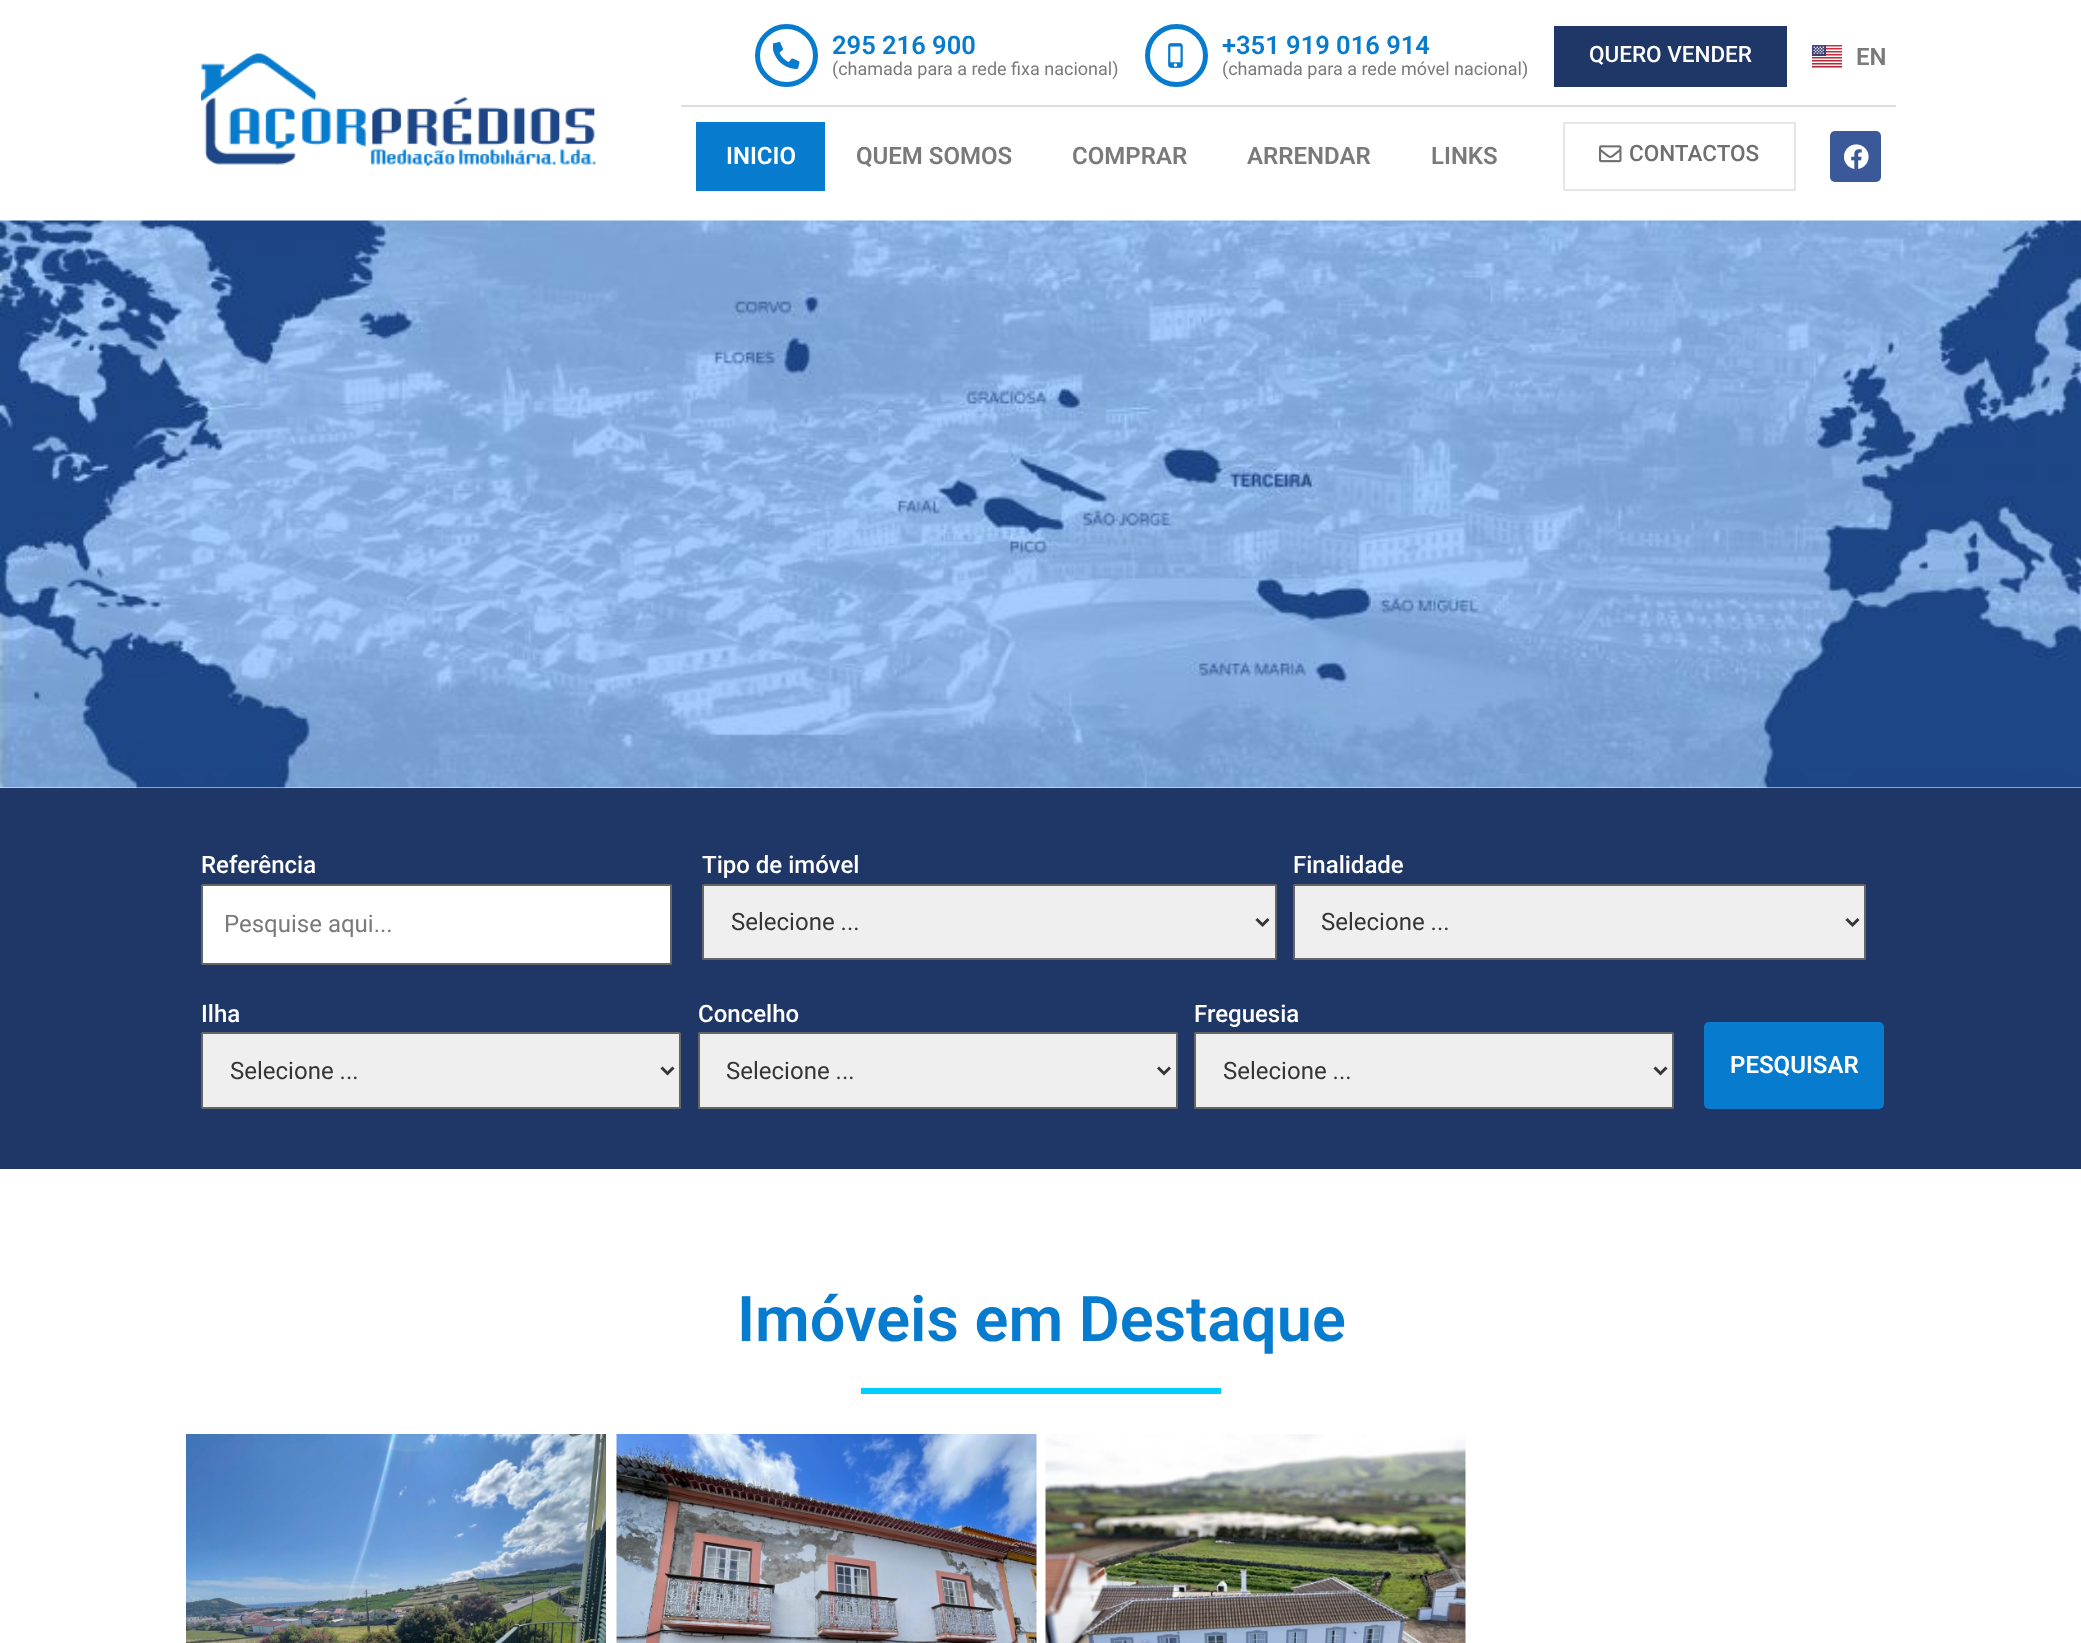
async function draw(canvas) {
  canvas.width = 2081
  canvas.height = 1643
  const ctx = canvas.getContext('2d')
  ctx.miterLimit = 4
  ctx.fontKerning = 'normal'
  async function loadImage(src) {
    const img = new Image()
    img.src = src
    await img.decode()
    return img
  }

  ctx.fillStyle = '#fff'
  ctx.fillRect(0, 0, 2081, 1643)
  ctx.drawImage(await loadImage('image0.png'), 201, 53, 395, 113)
  ctx.fillStyle = '#ddd'
  ctx.fillRect(681, 105, 1215, 2)
  ctx.beginPath()
  ctx.arc(786.5, 55.5, 29, 0, 2 * Math.PI)
  ctx.strokeStyle = '#077bcd'
  ctx.lineWidth = 5
  ctx.stroke()
  ctx.drawImage(await loadImage('image1.png'), 773, 42, 27, 27)
  ctx.font = '600 25.5px Roboto'
  ctx.fillStyle = '#077bcd'
  ctx.fillText('295 216 900', 832, 54)
  ctx.font = '18px Roboto'
  ctx.fillStyle = '#7a7a7a'
  ctx.fillText('(chamada para a rede fixa nacional)', 832, 75)
  ctx.beginPath()
  ctx.arc(1176.5, 55.5, 29, 0, 2 * Math.PI)
  ctx.stroke()
  ctx.drawImage(await loadImage('image2.png'), 1168, 43, 15, 25)
  ctx.font = '600 25.5px Roboto'
  ctx.fillStyle = '#077bcd'
  ctx.fillText('+351 919 016 914', 1222, 54)
  ctx.font = '18px Roboto'
  ctx.fillStyle = '#7a7a7a'
  ctx.fillText('(chamada para a rede móvel nacional)', 1222, 75)
  ctx.fillStyle = '#1f3766'
  ctx.fillRect(1554, 26, 233, 61)
  ctx.font = '500 22.5px Roboto'
  ctx.fillStyle = '#fff'
  ctx.fillText('QUERO VENDER', 1589, 62)
  ctx.drawImage(await loadImage('image3.png'), 1812, 45, 30, 23)
  ctx.font = '600 24px Roboto'
  ctx.fillStyle = '#7a7a7a'
  ctx.fillText('EN', 1856, 65)
  ctx.fillStyle = '#077bcd'
  ctx.fillRect(696, 122, 129, 69)
  ctx.fillStyle = '#fff'
  ctx.fillText('INICIO', 726, 164)
  ctx.fillStyle = '#7a7a7a'
  ctx.fillText('QUEM SOMOS', 856, 164)
  ctx.fillText('COMPRAR', 1072, 164)
  ctx.fillText('ARRENDAR', 1247, 164)
  ctx.fillText('LINKS', 1431, 164)
  ctx.strokeStyle = '#e6e6e6'
  ctx.lineWidth = 2
  ctx.strokeRect(1564, 123, 231, 67)
  ctx.drawImage(await loadImage('image4.png'), 1599, 145, 23, 18)
  ctx.font = '500 22.5px Roboto'
  ctx.fillStyle = '#6f6f6f'
  ctx.fillText('CONTACTOS', 1629, 161)
  ctx.fillStyle = '#3b5998'
  ctx.beginPath()
  ctx.roundRect(1830, 131, 51, 51, 5)
  ctx.fill()
  ctx.drawImage(await loadImage('image5.png'), 1844, 144, 25, 25)
  ctx.drawImage(await loadImage('image6.png'), 0, 220, 2081, 568)
  ctx.fillStyle = '#1f3766'
  ctx.fillRect(0, 788, 2081, 381)
  ctx.font = '500 24px Roboto'
  ctx.fillStyle = '#fff'
  ctx.fillText('Referência', 201, 873)
  ctx.beginPath()
  ctx.roundRect(202, 885, 469, 79, 0.5)
  ctx.fill()
  ctx.strokeStyle = '#666'
  ctx.stroke()
  ctx.font = '24px Roboto'
  ctx.fillStyle = '#7a7a7a'
  ctx.fillText('Pesquise aqui...', 224, 932)
  ctx.font = '500 24px Roboto'
  ctx.fillStyle = '#fff'
  ctx.fillText('Tipo de imóvel', 702, 873)
  ctx.fillStyle = '#efefef'
  ctx.beginPath()
  ctx.roundRect(703, 885, 573, 74, 0.5)
  ctx.fill()
  ctx.stroke()
  ctx.beginPath()
  ctx.moveTo(1256.5, 919)
  ctx.lineTo(1262.5, 925)
  ctx.lineTo(1268.5, 919)
  ctx.strokeStyle = '#353535'
  ctx.lineWidth = 3
  ctx.stroke()
  ctx.font = '24px Roboto'
  ctx.fillStyle = '#353535'
  ctx.fillText('Selecione ...', 731, 930)
  ctx.font = '500 24px Roboto'
  ctx.fillStyle = '#fff'
  ctx.fillText('Finalidade', 1293, 873)
  ctx.fillStyle = '#efefef'
  ctx.beginPath()
  ctx.roundRect(1294, 885, 571, 74, 0.5)
  ctx.fill()
  ctx.strokeStyle = '#666'
  ctx.lineWidth = 2
  ctx.stroke()
  ctx.beginPath()
  ctx.moveTo(1846.5, 919)
  ctx.lineTo(1852.5, 925)
  ctx.lineTo(1858.5, 919)
  ctx.strokeStyle = '#353535'
  ctx.lineWidth = 3
  ctx.stroke()
  ctx.font = '24px Roboto'
  ctx.fillStyle = '#353535'
  ctx.fillText('Selecione ...', 1321, 930)
  ctx.font = '500 24px Roboto'
  ctx.fillStyle = '#fff'
  ctx.fillText('Ilha', 201, 1022)
  ctx.fillStyle = '#efefef'
  ctx.beginPath()
  ctx.roundRect(202, 1033, 478, 75, 0.5)
  ctx.fill()
  ctx.strokeStyle = '#666'
  ctx.lineWidth = 2
  ctx.stroke()
  ctx.beginPath()
  ctx.moveTo(661.5, 1067.5)
  ctx.lineTo(667.5, 1073.5)
  ctx.lineTo(673.5, 1067.5)
  ctx.strokeStyle = '#353535'
  ctx.lineWidth = 3
  ctx.stroke()
  ctx.font = '24px Roboto'
  ctx.fillStyle = '#353535'
  ctx.fillText('Selecione ...', 230, 1079)
  ctx.font = '500 24px Roboto'
  ctx.fillStyle = '#fff'
  ctx.fillText('Concelho', 698, 1022)
  ctx.fillStyle = '#efefef'
  ctx.beginPath()
  ctx.roundRect(699, 1033, 478, 75, 0.5)
  ctx.fill()
  ctx.strokeStyle = '#666'
  ctx.lineWidth = 2
  ctx.stroke()
  ctx.beginPath()
  ctx.moveTo(1158, 1067.5)
  ctx.lineTo(1164, 1073.5)
  ctx.lineTo(1170, 1067.5)
  ctx.strokeStyle = '#353535'
  ctx.lineWidth = 3
  ctx.stroke()
  ctx.font = '24px Roboto'
  ctx.fillStyle = '#353535'
  ctx.fillText('Selecione ...', 726, 1079)
  ctx.font = '500 24px Roboto'
  ctx.fillStyle = '#fff'
  ctx.fillText('Freguesia', 1194, 1022)
  ctx.fillStyle = '#efefef'
  ctx.beginPath()
  ctx.roundRect(1195, 1033, 478, 75, 0.5)
  ctx.fill()
  ctx.strokeStyle = '#666'
  ctx.lineWidth = 2
  ctx.stroke()
  ctx.beginPath()
  ctx.moveTo(1654.5, 1067.5)
  ctx.lineTo(1660.5, 1073.5)
  ctx.lineTo(1666.5, 1067.5)
  ctx.strokeStyle = '#353535'
  ctx.lineWidth = 3
  ctx.stroke()
  ctx.font = '24px Roboto'
  ctx.fillStyle = '#353535'
  ctx.fillText('Selecione ...', 1223, 1079)
  ctx.fillStyle = '#077bcd'
  ctx.beginPath()
  ctx.roundRect(1704, 1022, 180, 87, 5)
  ctx.fill()
  ctx.font = '600 24px Roboto'
  ctx.fillStyle = '#fff'
  ctx.fillText('PESQUISAR', 1730, 1073)
  ctx.font = '600 63px Roboto'
  ctx.fillStyle = '#077bcd'
  ctx.fillText('Imóveis em Destaque', 737, 1341)
  ctx.fillStyle = '#00cdff'
  ctx.fillRect(861, 1388, 360, 6)
  ctx.drawImage(await loadImage('image7.png'), 186, 1434, 420, 209)
  ctx.drawImage(await loadImage('image8.png'), 616, 1434, 421, 209)
  ctx.drawImage(await loadImage('image9.png'), 1045, 1434, 421, 209)
}

draw(document.querySelector('canvas'))
